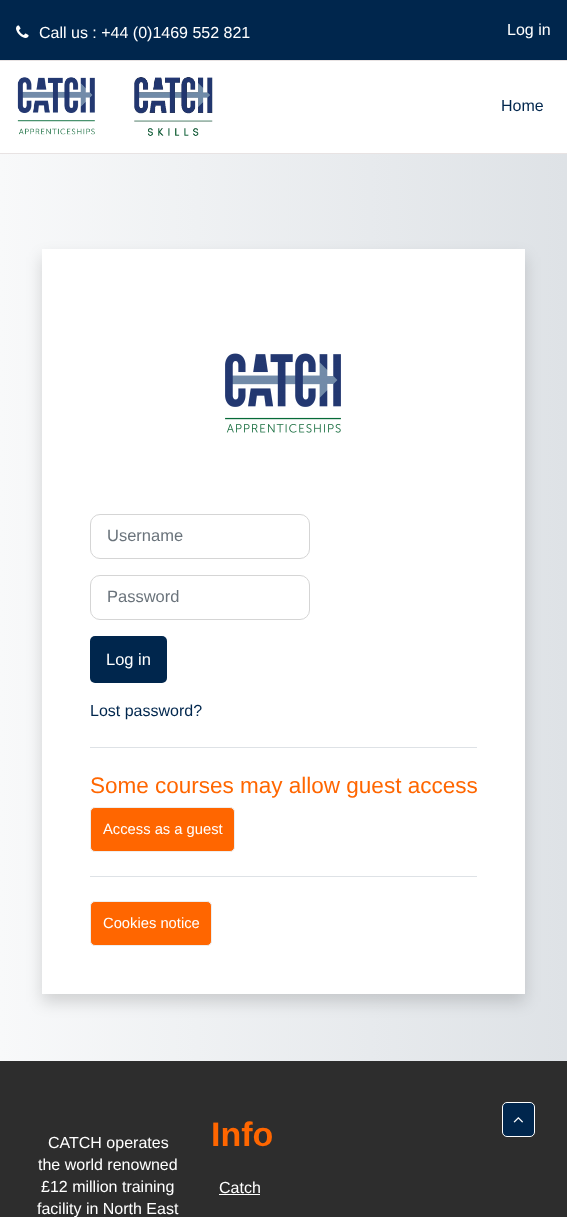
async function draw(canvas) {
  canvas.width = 567
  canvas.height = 1217
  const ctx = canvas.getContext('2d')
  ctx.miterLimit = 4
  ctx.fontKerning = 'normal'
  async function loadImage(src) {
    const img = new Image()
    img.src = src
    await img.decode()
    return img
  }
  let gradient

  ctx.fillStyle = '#fff'
  ctx.fillRect(0, 0, 567, 1217)
  ctx.fillStyle = '#00264d'
  ctx.fillRect(0, 0, 567, 60)
  ctx.fillStyle = '#e8e3e3'
  ctx.fillRect(0, 60, 567, 1)
  ctx.drawImage(await loadImage('image0.png'), 16, 25, 13, 13)
  ctx.font = '16px Liberation Sans'
  ctx.fillStyle = '#fff'
  ctx.fillText('Call us : +44 (0)1469 552 821', 39, 38)
  ctx.fillText('Log in', 507, 35)
  ctx.fillStyle = '#e8e3e3'
  ctx.fillRect(0, 153, 567, 1)
  ctx.drawImage(await loadImage('image1.png'), 17, 77, 196, 59)
  ctx.fillStyle = '#00264d'
  ctx.fillText('Home', 501, 111)
  gradient = ctx.createLinearGradient(0, 608, 567, 608)
  gradient.addColorStop(0, '#f8f9fa')
  gradient.addColorStop(1, '#dee2e6')
  ctx.fillStyle = gradient
  ctx.fillRect(0, 154, 567, 907)
  ctx.fillStyle = '#00000026'
  ctx.filter = 'blur(8px)'
  ctx.beginPath()
  ctx.rect(42, 257, 483, 745)
  ctx.fill()
  ctx.filter = 'none'
  ctx.fillStyle = '#fff'
  ctx.fillRect(42, 249, 483, 745)
  ctx.drawImage(await loadImage('image2.png'), 225, 353, 116, 80)
  ctx.beginPath()
  ctx.roundRect(90.5, 514.5, 219, 44, 9.5)
  ctx.strokeStyle = '#d5d5d5'
  ctx.stroke()
  ctx.font = '16.5px Liberation Sans'
  ctx.fillStyle = '#6a737b'
  ctx.fillText('Username', 107, 541)
  ctx.beginPath()
  ctx.roundRect(90.5, 575.5, 219, 44, 9.5)
  ctx.stroke()
  ctx.fillText('Password', 107, 602)
  ctx.fillStyle = '#00264d'
  ctx.beginPath()
  ctx.roundRect(90, 636, 77, 47, 5)
  ctx.fill()
  ctx.fillStyle = '#fff'
  ctx.fillText('Log in', 106, 665)
  ctx.font = '16px Liberation Sans'
  ctx.fillStyle = '#00264d'
  ctx.fillText('Lost password?', 90, 716)
  ctx.fillStyle = '#dee2e6'
  ctx.fillRect(90, 747, 387, 1)
  ctx.font = '22.5px Liberation Sans'
  ctx.fillStyle = '#f60'
  ctx.fillText('Some courses may allow guest access', 90, 793)
  ctx.beginPath()
  ctx.roundRect(90.5, 807.5, 144, 44, 4.5)
  ctx.fill()
  ctx.strokeStyle = '#eee'
  ctx.stroke()
  ctx.font = '14.75px Liberation Sans'
  ctx.fillStyle = '#fff'
  ctx.fillText('Access as a guest', 103, 834)
  ctx.fillStyle = '#dee2e6'
  ctx.fillRect(90, 876, 387, 1)
  ctx.fillStyle = '#f60'
  ctx.beginPath()
  ctx.roundRect(90.5, 901.5, 121, 44, 4.5)
  ctx.fill()
  ctx.stroke()
  ctx.fillStyle = '#fff'
  ctx.fillText('Cookies notice', 103, 928)
  ctx.fillStyle = '#2d2d2d'
  ctx.fillRect(0, 1061, 567, 156)
  ctx.font = '16px Liberation Sans'
  ctx.fillStyle = '#fff'
  ctx.fillText('CATCH operates', 48, 1148)
  ctx.fillText('the world renowned', 38, 1170)
  ctx.fillText('£12 million training', 41, 1192)
  ctx.fillText('facility in North East', 37, 1214)
  ctx.font = 'bold 34px Liberation Sans'
  ctx.fillStyle = '#f60'
  ctx.fillText('Info', 211, 1146)
  ctx.font = '16px Liberation Sans'
  ctx.fillStyle = '#fff'
  ctx.fillText('Catch', 219, 1193)
  ctx.fillRect(219, 1194, 41, 1)
  ctx.fillStyle = '#00264d'
  ctx.beginPath()
  ctx.roundRect(502.5, 1102.5, 32, 34, 4.5)
  ctx.fill()
  ctx.strokeStyle = '#fff'
  ctx.stroke()
  ctx.drawImage(await loadImage('image3.png'), 513, 1117, 10, 6)
}

draw(document.querySelector('canvas'))
